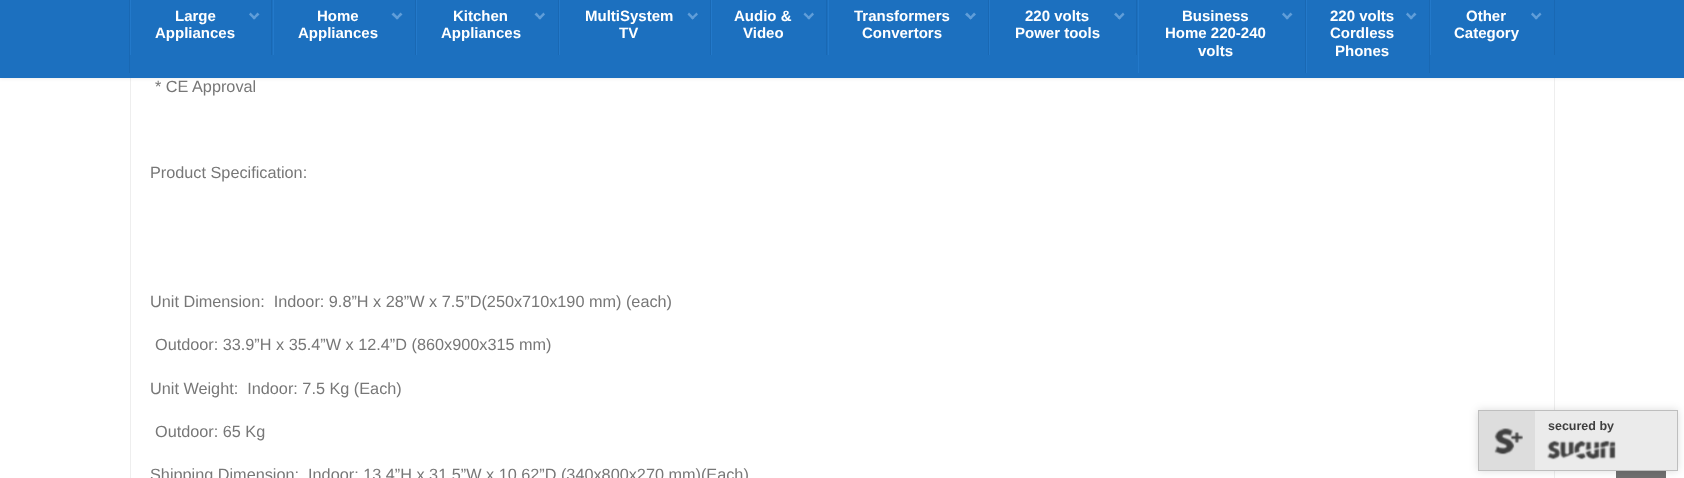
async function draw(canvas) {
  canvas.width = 1684
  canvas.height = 478
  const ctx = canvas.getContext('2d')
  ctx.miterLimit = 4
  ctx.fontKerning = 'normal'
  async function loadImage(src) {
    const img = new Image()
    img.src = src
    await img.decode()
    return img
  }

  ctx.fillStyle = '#fff'
  ctx.fillRect(0, 0, 1684, 478)
  ctx.fillStyle = '#eee'
  ctx.beginPath()
  ctx.moveTo(130, -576)
  ctx.lineTo(1555, -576)
  ctx.lineTo(1555, 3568)
  ctx.bezierCurveTo(1555, 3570, 1553, 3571, 1551, 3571)
  ctx.lineTo(134, 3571)
  ctx.bezierCurveTo(132, 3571, 130, 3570, 130, 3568)
  ctx.closePath()
  ctx.moveTo(131, -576)
  ctx.lineTo(1554, -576)
  ctx.lineTo(1554, 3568)
  ctx.bezierCurveTo(1554, 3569, 1553, 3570, 1551, 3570)
  ctx.lineTo(134, 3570)
  ctx.bezierCurveTo(132, 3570, 131, 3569, 131, 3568)
  ctx.closePath()
  ctx.fill('evenodd')
  ctx.fillStyle = '#0000001a'
  ctx.filter = 'blur(2px)'
  ctx.beginPath()
  ctx.rect(0, -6, 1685, 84)
  ctx.fill()
  ctx.filter = 'none'
  ctx.fillStyle = '#1c70bf'
  ctx.fillRect(0, 0, 1684, 78)
  ctx.fillStyle = '#1968b3'
  ctx.fillRect(129, 0, 1, 73)
  ctx.fillRect(271, 0, 1, 55)
  ctx.fillStyle = '#2379ca'
  ctx.fillRect(130, 0, 1, 55)
  ctx.font = 'bold 15px Liberation Sans'
  ctx.fillStyle = '#fff'
  ctx.fillText('Large', 175, 21)
  ctx.fillText('Appliances', 155, 38)
  ctx.fillStyle = '#609ed9'
  ctx.beginPath()
  ctx.moveTo(257.5, 12.5)
  ctx.lineTo(259.5, 14.5)
  ctx.lineTo(254, 19.5)
  ctx.lineTo(252.5, 18)
  ctx.closePath()
  ctx.fill()
  ctx.beginPath()
  ctx.moveTo(250.5, 12.5)
  ctx.lineTo(256, 18)
  ctx.lineTo(254, 19.5)
  ctx.lineTo(249, 14.5)
  ctx.closePath()
  ctx.fill()
  ctx.fillStyle = '#1968b3'
  ctx.fillRect(415, 0, 1, 55)
  ctx.fillStyle = '#2379ca'
  ctx.fillRect(273, 0, 1, 55)
  ctx.fillStyle = '#fff'
  ctx.fillText('Home', 317, 21)
  ctx.fillText('Appliances', 298, 38)
  ctx.fillStyle = '#609ed9'
  ctx.beginPath()
  ctx.moveTo(400.5, 12.5)
  ctx.lineTo(402.5, 14.5)
  ctx.lineTo(397, 19.5)
  ctx.lineTo(395.5, 18)
  ctx.closePath()
  ctx.fill()
  ctx.beginPath()
  ctx.moveTo(393.5, 12.5)
  ctx.lineTo(399, 18)
  ctx.lineTo(397, 19.5)
  ctx.lineTo(391.5, 14.5)
  ctx.closePath()
  ctx.fill()
  ctx.fillStyle = '#1968b3'
  ctx.fillRect(558, 0, 1, 55)
  ctx.fillStyle = '#2379ca'
  ctx.fillRect(416, 0, 1, 55)
  ctx.fillStyle = '#fff'
  ctx.fillText('Kitchen', 453, 21)
  ctx.fillText('Appliances', 441, 38)
  ctx.fillStyle = '#609ed9'
  ctx.beginPath()
  ctx.moveTo(543.5, 12.5)
  ctx.lineTo(545, 14.5)
  ctx.lineTo(540, 19.5)
  ctx.lineTo(538, 18)
  ctx.closePath()
  ctx.fill()
  ctx.beginPath()
  ctx.moveTo(536.5, 12.5)
  ctx.lineTo(541.5, 18)
  ctx.lineTo(540, 19.5)
  ctx.lineTo(534.5, 14.5)
  ctx.closePath()
  ctx.fill()
  ctx.fillStyle = '#1968b3'
  ctx.fillRect(710, 0, 1, 55)
  ctx.fillStyle = '#2379ca'
  ctx.fillRect(559, 0, 1, 55)
  ctx.fillStyle = '#fff'
  ctx.fillText('MultiSystem', 585, 21)
  ctx.fillText('TV', 619, 38)
  ctx.fillStyle = '#609ed9'
  ctx.beginPath()
  ctx.moveTo(696.5, 12.5)
  ctx.lineTo(698, 14.5)
  ctx.lineTo(692.5, 19.5)
  ctx.lineTo(691, 18)
  ctx.closePath()
  ctx.fill()
  ctx.beginPath()
  ctx.moveTo(689, 12.5)
  ctx.lineTo(694.5, 18)
  ctx.lineTo(692.5, 19.5)
  ctx.lineTo(687.5, 14.5)
  ctx.closePath()
  ctx.fill()
  ctx.fillStyle = '#1968b3'
  ctx.fillRect(826, 0, 1, 55)
  ctx.fillStyle = '#2379ca'
  ctx.fillRect(711, 0, 1, 55)
  ctx.fillStyle = '#fff'
  ctx.fillText('Audio &', 734, 21)
  ctx.fillText('Video', 743, 38)
  ctx.fillStyle = '#609ed9'
  ctx.beginPath()
  ctx.moveTo(812.5, 12.5)
  ctx.lineTo(814, 14.5)
  ctx.lineTo(809, 19.5)
  ctx.lineTo(807, 18)
  ctx.closePath()
  ctx.fill()
  ctx.beginPath()
  ctx.moveTo(805, 12.5)
  ctx.lineTo(810.5, 18)
  ctx.lineTo(809, 19.5)
  ctx.lineTo(803.5, 14.5)
  ctx.closePath()
  ctx.fill()
  ctx.fillStyle = '#1968b3'
  ctx.fillRect(988, 0, 1, 55)
  ctx.fillStyle = '#2379ca'
  ctx.fillRect(828, 0, 1, 55)
  ctx.fillStyle = '#fff'
  ctx.fillText('Transformers', 854, 21)
  ctx.fillText('Convertors', 862, 38)
  ctx.fillStyle = '#609ed9'
  ctx.beginPath()
  ctx.moveTo(974, 12.5)
  ctx.lineTo(976, 14.5)
  ctx.lineTo(970.5, 19.5)
  ctx.lineTo(969, 18)
  ctx.closePath()
  ctx.fill()
  ctx.beginPath()
  ctx.moveTo(967, 12.5)
  ctx.lineTo(972.5, 18)
  ctx.lineTo(970.5, 19.5)
  ctx.lineTo(965, 14.5)
  ctx.closePath()
  ctx.fill()
  ctx.fillStyle = '#1968b3'
  ctx.fillRect(1136, 0, 1, 55)
  ctx.fillStyle = '#2379ca'
  ctx.fillRect(989, 0, 1, 55)
  ctx.fillStyle = '#fff'
  ctx.fillText('220 volts', 1025, 21)
  ctx.fillText('Power tools', 1015, 38)
  ctx.fillStyle = '#609ed9'
  ctx.beginPath()
  ctx.moveTo(1123, 12.5)
  ctx.lineTo(1124.5, 14.5)
  ctx.lineTo(1119.5, 19.5)
  ctx.lineTo(1117.5, 18)
  ctx.closePath()
  ctx.fill()
  ctx.beginPath()
  ctx.moveTo(1116, 12.5)
  ctx.lineTo(1121, 18)
  ctx.lineTo(1119.5, 19.5)
  ctx.lineTo(1114, 14.5)
  ctx.closePath()
  ctx.fill()
  ctx.fillStyle = '#1968b3'
  ctx.fillRect(1305, 0, 1, 73)
  ctx.fillStyle = '#2379ca'
  ctx.fillRect(1138, 0, 1, 73)
  ctx.fillStyle = '#fff'
  ctx.fillText('Business', 1182, 21)
  ctx.fillText('Home 220-240', 1165, 38)
  ctx.fillText('volts', 1198, 56)
  ctx.fillStyle = '#609ed9'
  ctx.beginPath()
  ctx.moveTo(1290.5, 12.5)
  ctx.lineTo(1292.5, 14.5)
  ctx.lineTo(1287, 19.5)
  ctx.lineTo(1285.5, 18)
  ctx.closePath()
  ctx.fill()
  ctx.beginPath()
  ctx.moveTo(1283.5, 12.5)
  ctx.lineTo(1289, 18)
  ctx.lineTo(1287, 19.5)
  ctx.lineTo(1282, 14.5)
  ctx.closePath()
  ctx.fill()
  ctx.fillStyle = '#1968b3'
  ctx.fillRect(1429, 0, 1, 73)
  ctx.fillStyle = '#2379ca'
  ctx.fillRect(1306, 0, 1, 73)
  ctx.fillStyle = '#fff'
  ctx.fillText('220 volts', 1330, 21)
  ctx.fillText('Cordless', 1330, 38)
  ctx.fillText('Phones', 1335, 56)
  ctx.fillStyle = '#609ed9'
  ctx.beginPath()
  ctx.moveTo(1414.5, 12.5)
  ctx.lineTo(1416.5, 14.5)
  ctx.lineTo(1411, 19.5)
  ctx.lineTo(1409.5, 18)
  ctx.closePath()
  ctx.fill()
  ctx.beginPath()
  ctx.moveTo(1407.5, 12.5)
  ctx.lineTo(1413, 18)
  ctx.lineTo(1411, 19.5)
  ctx.lineTo(1406, 14.5)
  ctx.closePath()
  ctx.fill()
  ctx.fillStyle = '#1968b3'
  ctx.fillRect(1554, 0, 1, 55)
  ctx.fillStyle = '#2379ca'
  ctx.fillRect(1430, 0, 1, 55)
  ctx.fillStyle = '#fff'
  ctx.fillText('Other', 1466, 21)
  ctx.fillText('Category', 1454, 38)
  ctx.fillStyle = '#609ed9'
  ctx.beginPath()
  ctx.moveTo(1540, 12.5)
  ctx.lineTo(1541.5, 14.5)
  ctx.lineTo(1536, 19.5)
  ctx.lineTo(1534.5, 18)
  ctx.closePath()
  ctx.fill()
  ctx.beginPath()
  ctx.moveTo(1532.5, 12.5)
  ctx.lineTo(1538, 18)
  ctx.lineTo(1536, 19.5)
  ctx.lineTo(1531, 14.5)
  ctx.closePath()
  ctx.fill()
  ctx.font = '16.25px Liberation Sans'
  ctx.fillStyle = '#777'
  ctx.fillText('* CE Approval', 155, 92)
  ctx.fillText('Product Specification:', 150, 178)
  ctx.fillText('Unit Dimension:  Indoor: 9.8”H x 28”W x 7.5”D(250x710x190 mm) (each)', 150, 307)
  ctx.fillText('Outdoor: 33.9”H x 35.4”W x 12.4”D (860x900x315 mm)', 155, 350)
  ctx.fillText('Unit Weight:  Indoor: 7.5 Kg (Each)', 150, 394)
  ctx.fillText('Outdoor: 65 Kg', 155, 437)
  ctx.fillText('Shipping Dimension:  Indoor: 13.4”H x 31.5”W x 10.62”D (340x800x270 mm)(Each)', 150, 480)
  ctx.fillStyle = '#707070'
  ctx.fillRect(1616, 471, 50, 7)
  ctx.fillStyle = '#00000024'
  ctx.filter = 'blur(4px)'
  ctx.beginPath()
  ctx.rect(1478, 410, 200, 61)
  ctx.fill()
  ctx.filter = 'none'
  ctx.fillStyle = '#ebebeb'
  ctx.fillRect(1535, 411, 142, 59)
  ctx.strokeStyle = '#bebebe'
  ctx.strokeRect(1478.5, 410.5, 199, 60)
  ctx.fillStyle = '#ddd'
  ctx.fillRect(1479, 411, 56, 59)
  ctx.drawImage(await loadImage('image0.png'), 1494, 428, 29, 27)
  ctx.font = 'bold 12.5px Liberation Sans'
  ctx.fillStyle = '#3f3f3f'
  ctx.fillText('secured by', 1548, 430)
  ctx.drawImage(await loadImage('image1.png'), 1547, 440, 69, 20)
}

draw(document.querySelector('canvas'))
